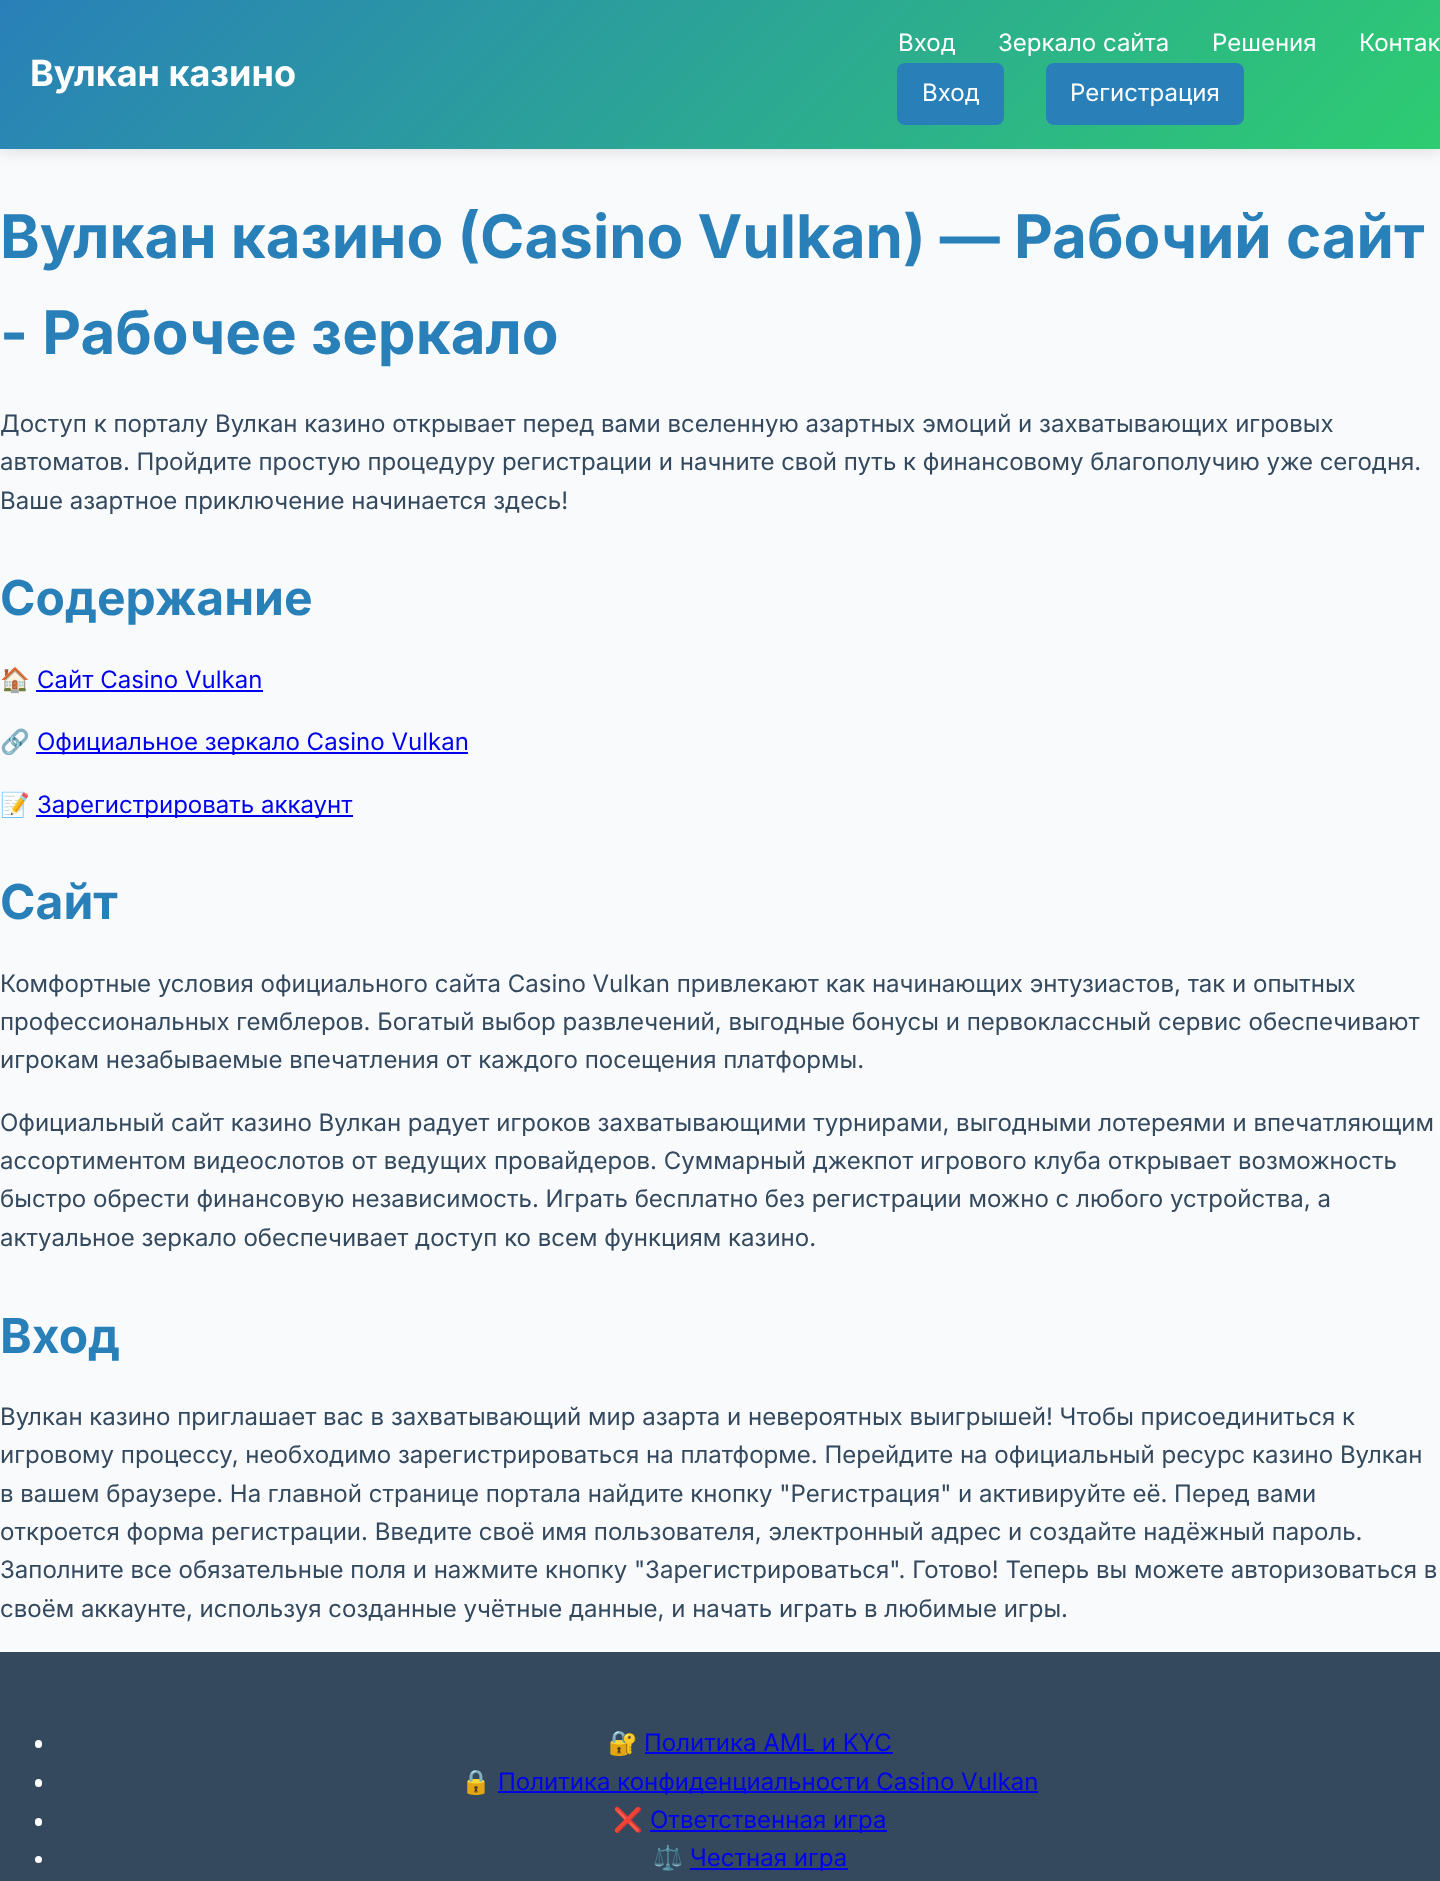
async function draw(canvas) {
  canvas.width = 1440
  canvas.height = 1881
  const ctx = canvas.getContext('2d')
  ctx.miterLimit = 4
  ctx.fontKerning = 'normal'
  let gradient

  ctx.fillStyle = '#f8fafc'
  ctx.fillRect(0, 0, 1440, 1881)
  ctx.fillStyle = '#0000001a'
  ctx.filter = 'blur(7.5px)'
  ctx.beginPath()
  ctx.rect(0, 3, 1440, 149)
  ctx.fill()
  ctx.filter = 'none'
  gradient = ctx.createLinearGradient(323, -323, 1117, 471)
  gradient.addColorStop(0, '#2980b9')
  gradient.addColorStop(1, '#2ecc71')
  ctx.fillStyle = gradient
  ctx.fillRect(0, 0, 1440, 149)
  ctx.font = 'bold 36px Inter'
  ctx.fillStyle = '#fff'
  ctx.fillText('Вулкан казино', 30, 86)
  ctx.font = '24px Inter'
  ctx.fillText('Вход', 898, 51)
  ctx.fillText('Зеркало сайта', 998, 51)
  ctx.fillText('Решения', 1212, 51)
  ctx.fillText('Контак', 1359, 51)
  ctx.fillStyle = '#2980b9'
  ctx.beginPath()
  ctx.roundRect(897, 63, 107, 62, 8)
  ctx.fill()
  ctx.fillStyle = '#fff'
  ctx.fillText('Вход', 922, 101)
  ctx.fillStyle = '#2980b9'
  ctx.beginPath()
  ctx.roundRect(1046, 63, 198, 62, 8)
  ctx.fill()
  ctx.fillStyle = '#fff'
  ctx.fillText('Регистрация', 1070, 101)
  ctx.font = 'bold 60px Inter'
  ctx.fillStyle = '#2980b9'
  ctx.fillText('Вулкан казино (Casino Vulkan) — Рабочий сайт', 0, 258)
  ctx.fillText('- Рабочее зеркало', 0, 354)
  ctx.font = '24px Inter'
  ctx.fillStyle = '#34495e'
  ctx.fillText('Доступ к порталу Вулкан казино открывает перед вами вселенную азартных эмоций и захватывающих игровых', 0, 432)
  ctx.fillText('автоматов. Пройдите простую процедуру регистрации и начните свой путь к финансовому благополучию уже сегодня.', 0, 470)
  ctx.fillText('Ваше азартное приключение начинается здесь!', 0, 509)
  ctx.font = 'bold 48px Inter'
  ctx.fillStyle = '#2980b9'
  ctx.fillText('Содержание', 0, 615)
  ctx.font = '24px Noto Color Emoji'
  ctx.fillStyle = '#34495e'
  ctx.fillText('🏠', 0, 688)
  ctx.font = '24px Inter'
  ctx.fillStyle = '#00e'
  ctx.fillText('Сайт Casino Vulkan', 37, 688)
  ctx.fillRect(36, 690, 227, 2)
  ctx.font = '24px Noto Color Emoji'
  ctx.fillStyle = '#34495e'
  ctx.fillText('🔗', 0, 750)
  ctx.fillStyle = '#00e'
  ctx.fillRect(36, 752, 432, 2)
  ctx.font = '24px Inter'
  ctx.fillText('Официальное зеркало Casino Vulkan', 37, 750)
  ctx.font = '24px Noto Color Emoji'
  ctx.fillStyle = '#34495e'
  ctx.fillText('📝', 0, 813)
  ctx.fillStyle = '#00e'
  ctx.fillRect(36, 815, 317, 2)
  ctx.font = '24px Inter'
  ctx.fillText('Зарегистрировать аккаунт', 37, 813)
  ctx.font = 'bold 48px Inter'
  ctx.fillStyle = '#2980b9'
  ctx.fillText('Сайт', 0, 919)
  ctx.font = '24px Inter'
  ctx.fillStyle = '#34495e'
  ctx.fillText('Комфортные условия официального сайта Casino Vulkan привлекают как начинающих энтузиастов, так и опытных', 0, 992)
  ctx.fillText('профессиональных гемблеров. Богатый выбор развлечений, выгодные бонусы и первоклассный сервис обеспечивают', 0, 1030)
  ctx.fillText('игрокам незабываемые впечатления от каждого посещения платформы.', 0, 1068)
  ctx.fillText('Официальный сайт казино Вулкан радует игроков захватывающими турнирами, выгодными лотереями и впечатляющим', 0, 1131)
  ctx.fillText('ассортиментом видеослотов от ведущих провайдеров. Суммарный джекпот игрового клуба открывает возможность', 0, 1169)
  ctx.fillText('быстро обрести финансовую независимость. Играть бесплатно без регистрации можно с любого устройства, а', 0, 1207)
  ctx.fillText('актуальное зеркало обеспечивает доступ ко всем функциям казино.', 0, 1246)
  ctx.font = 'bold 48px Inter'
  ctx.fillStyle = '#2980b9'
  ctx.fillText('Вход', 0, 1353)
  ctx.font = '24px Inter'
  ctx.fillStyle = '#34495e'
  ctx.fillText('Вулкан казино приглашает вас в захватывающий мир азарта и невероятных выигрышей! Чтобы присоединиться к', 0, 1425)
  ctx.fillText('игровому процессу, необходимо зарегистрироваться на платформе. Перейдите на официальный ресурс казино Вулкан', 0, 1463)
  ctx.fillText('в вашем браузере. На главной странице портала найдите кнопку "Регистрация" и активируйте её. Перед вами', 0, 1502)
  ctx.fillText('откроется форма регистрации. Введите своё имя пользователя, электронный адрес и создайте надёжный пароль.', 0, 1540)
  ctx.fillText('Заполните все обязательные поля и нажмите кнопку "Зарегистрироваться". Готово! Теперь вы можете авторизоваться в', 0, 1578)
  ctx.fillText('своём аккаунте, используя созданные учётные данные, и начать играть в любимые игры.', 0, 1617)
  ctx.fillRect(0, 1652, 1440, 229)
  ctx.fillStyle = '#fff'
  ctx.beginPath()
  ctx.roundRect(35, 1740, 7, 8, 3.5)
  ctx.fill()
  ctx.font = '24px Noto Color Emoji'
  ctx.fillText('🔐', 608, 1751)
  ctx.font = '24px Inter'
  ctx.fillStyle = '#00e'
  ctx.fillText('Политика AML и KYC', 644, 1751)
  ctx.fillRect(645, 1752, 248, 2)
  ctx.fillStyle = '#fff'
  ctx.beginPath()
  ctx.roundRect(35, 1779, 7, 8, 3.5)
  ctx.fill()
  ctx.font = '24px Noto Color Emoji'
  ctx.fillText('🔒', 461, 1790)
  ctx.fillStyle = '#00e'
  ctx.fillRect(498, 1791, 540, 2)
  ctx.font = '24px Inter'
  ctx.fillText('Политика конфиденциальности Casino Vulkan', 498, 1790)
  ctx.fillStyle = '#fff'
  ctx.beginPath()
  ctx.roundRect(35, 1818, 7, 8, 3.5)
  ctx.fill()
  ctx.font = '24px Noto Color Emoji'
  ctx.fillText('❌', 613, 1828)
  ctx.fillStyle = '#00e'
  ctx.fillRect(650, 1830, 237, 2)
  ctx.font = '24px Inter'
  ctx.fillText('Ответственная игра', 650, 1828)
  ctx.fillStyle = '#fff'
  ctx.beginPath()
  ctx.arc(38.5, 1859.5, 3.5, 0, 2 * Math.PI)
  ctx.fill()
  ctx.font = '24px Noto Color Emoji'
  ctx.fillText('⚖️', 653, 1866)
  ctx.fillStyle = '#00e'
  ctx.fillRect(690, 1868, 158, 2)
  ctx.font = '24px Inter'
  ctx.fillText('Честная игра', 690, 1866)
}

draw(document.querySelector('canvas'))
